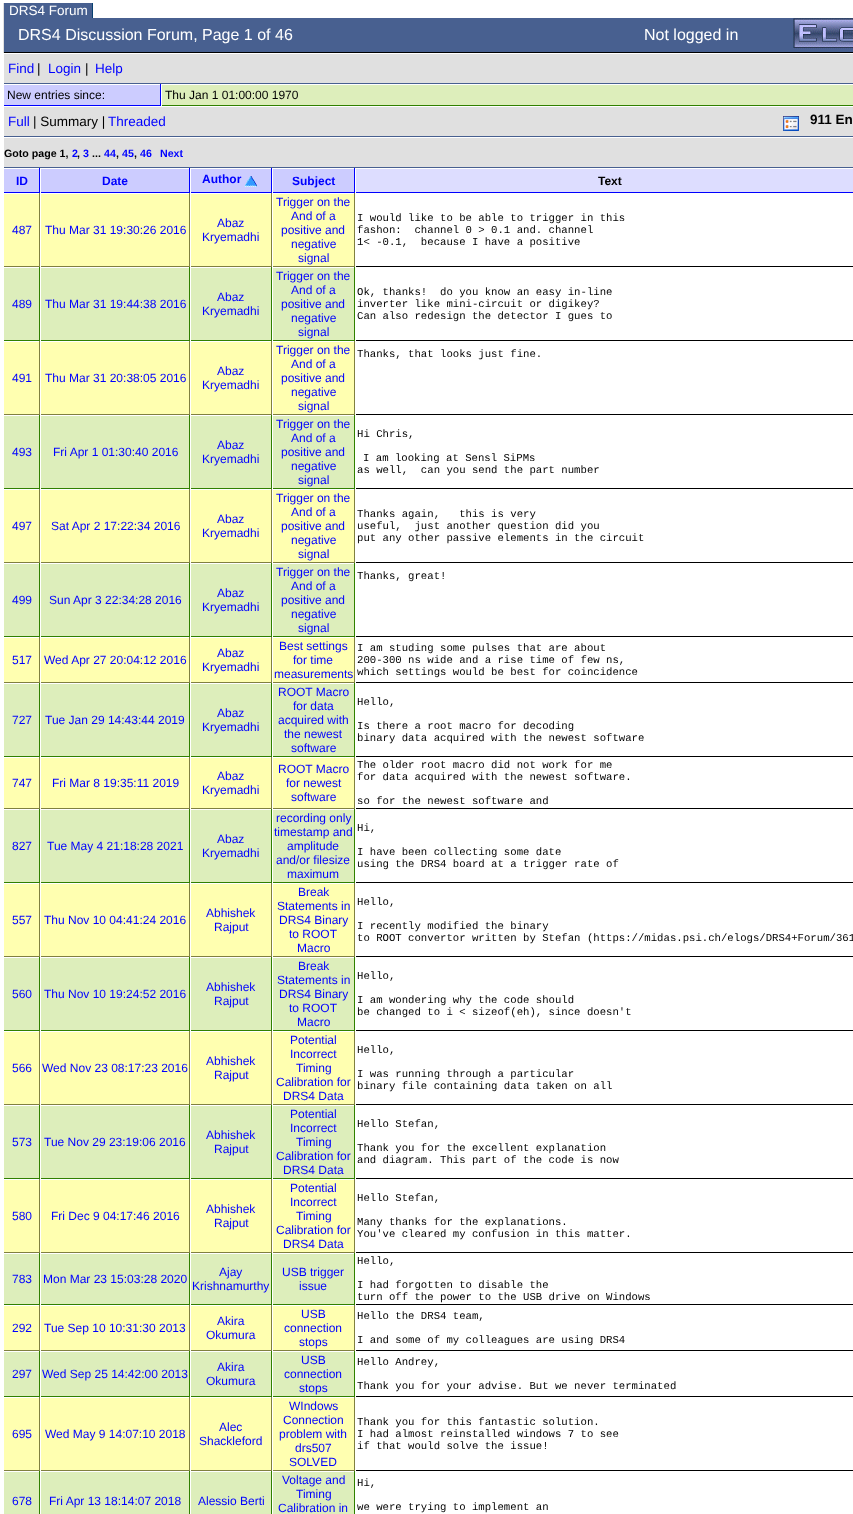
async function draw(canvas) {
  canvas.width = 853
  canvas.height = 1514
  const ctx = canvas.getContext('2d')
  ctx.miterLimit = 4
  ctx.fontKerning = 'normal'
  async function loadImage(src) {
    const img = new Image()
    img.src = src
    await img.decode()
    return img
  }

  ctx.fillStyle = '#fff'
  ctx.fillRect(0, 0, 853, 1514)
  ctx.fillStyle = '#486090'
  ctx.fillRect(4, 3, 88, 15)
  ctx.font = '13.5px Liberation Sans'
  ctx.fillStyle = '#fff'
  ctx.fillText('DRS4 Forum', 9, 15)
  ctx.fillStyle = '#084070'
  ctx.fillRect(92, 3, 1, 15)
  ctx.fillStyle = '#e0e0e0'
  ctx.fillRect(3, 3, 1, 15)
  ctx.fillStyle = '#486090'
  ctx.fillRect(4, 18, 849, 34)
  ctx.fillStyle = '#000'
  ctx.fillRect(3, 52, 850, 1)
  ctx.fillStyle = '#e0e0e0'
  ctx.fillRect(3, 18, 1, 35)
  ctx.font = '16px Liberation Sans'
  ctx.fillStyle = '#fff'
  ctx.fillText('DRS4 Discussion Forum, Page 1 of 46', 18, 40)
  ctx.fillText('Not logged in', 644, 40)
  ctx.drawImage(await loadImage('image0.png'), 793, 18, 60, 31)
  ctx.fillStyle = '#e0e0e0'
  ctx.fillRect(4, 54, 849, 29)
  ctx.fillStyle = '#486090'
  ctx.fillRect(3, 83, 850, 1)
  ctx.fillStyle = '#fff'
  ctx.fillRect(3, 83, 1, 1)
  ctx.font = '13.5px Liberation Sans'
  ctx.fillStyle = '#00f'
  ctx.fillText('Find', 8, 73)
  ctx.fillStyle = '#000'
  ctx.fillText('|', 37, 73)
  ctx.fillStyle = '#00f'
  ctx.fillText('Login', 48, 73)
  ctx.fillStyle = '#000'
  ctx.fillText('|', 85, 73)
  ctx.fillStyle = '#00f'
  ctx.fillText('Help', 95, 73)
  ctx.fillStyle = '#ccf'
  ctx.fillRect(4, 85, 156, 20)
  ctx.fillStyle = '#00f'
  ctx.fillRect(160, 84, 1, 22)
  ctx.fillRect(3, 105, 158, 1)
  ctx.fillStyle = '#fff'
  ctx.fillRect(3, 105, 1, 1)
  ctx.font = '12px Liberation Sans'
  ctx.fillStyle = '#000'
  ctx.fillText('New entries since:', 7, 99)
  ctx.fillStyle = '#deb'
  ctx.fillRect(162, 85, 691, 20)
  ctx.fillStyle = '#308000'
  ctx.fillRect(161, 105, 692, 1)
  ctx.fillStyle = '#fff'
  ctx.fillRect(161, 105, 1, 1)
  ctx.fillStyle = '#000'
  ctx.fillText('Thu Jan 1 01:00:00 1970', 165, 99)
  ctx.fillStyle = '#e0e0e0'
  ctx.fillRect(4, 107, 849, 29)
  ctx.fillStyle = '#486090'
  ctx.fillRect(3, 136, 850, 1)
  ctx.fillStyle = '#fff'
  ctx.fillRect(3, 136, 1, 1)
  ctx.font = '13.5px Liberation Sans'
  ctx.fillStyle = '#00f'
  ctx.fillText('Full', 8, 126)
  ctx.fillStyle = '#000'
  ctx.fillText('| Summary |', 33, 126)
  ctx.fillStyle = '#00f'
  ctx.fillText('Threaded', 108, 126)
  ctx.drawImage(await loadImage('image1.png'), 783, 116, 16, 15)
  ctx.font = 'bold 13.5px Liberation Sans'
  ctx.fillStyle = '#000'
  ctx.fillText('911 En', 810, 124)
  ctx.fillStyle = '#e0e0e0'
  ctx.fillRect(4, 138, 849, 29)
  ctx.fillStyle = '#486090'
  ctx.fillRect(3, 167, 850, 1)
  ctx.fillStyle = '#fff'
  ctx.fillRect(3, 167, 1, 1)
  ctx.font = 'bold 10.65px Liberation Sans'
  ctx.fillStyle = '#000'
  ctx.fillText('Goto page 1,', 4, 157)
  ctx.fillStyle = '#00f'
  ctx.fillText('2', 72, 157)
  ctx.fillStyle = '#000'
  ctx.fillText(',', 77, 157)
  ctx.fillStyle = '#00f'
  ctx.fillText('3', 83, 157)
  ctx.fillStyle = '#000'
  ctx.fillText('...', 92, 157)
  ctx.fillStyle = '#00f'
  ctx.fillText('44', 104, 157)
  ctx.fillStyle = '#000'
  ctx.fillText(',', 116, 157)
  ctx.fillStyle = '#00f'
  ctx.fillText('45', 122, 157)
  ctx.fillStyle = '#000'
  ctx.fillText(',', 134, 157)
  ctx.fillStyle = '#00f'
  ctx.fillText('46', 140, 157)
  ctx.fillText('Next', 160, 157)
  ctx.fillStyle = '#ccf'
  ctx.fillRect(4, 169, 35, 23)
  ctx.fillStyle = '#00f'
  ctx.fillRect(39, 168, 1, 25)
  ctx.fillRect(3, 192, 37, 1)
  ctx.fillStyle = '#fff'
  ctx.fillRect(3, 192, 1, 1)
  ctx.font = 'bold 12px Liberation Sans'
  ctx.fillStyle = '#00f'
  ctx.fillText('ID', 16, 185)
  ctx.fillStyle = '#ccf'
  ctx.fillRect(41, 169, 148, 23)
  ctx.fillStyle = '#00f'
  ctx.fillRect(189, 168, 1, 25)
  ctx.fillRect(40, 192, 150, 1)
  ctx.fillStyle = '#fff'
  ctx.fillRect(40, 192, 1, 1)
  ctx.fillStyle = '#00f'
  ctx.fillText('Date', 102, 185)
  ctx.fillStyle = '#ccf'
  ctx.fillRect(191, 169, 80, 23)
  ctx.fillStyle = '#00f'
  ctx.fillRect(271, 168, 1, 25)
  ctx.fillRect(190, 192, 82, 1)
  ctx.fillStyle = '#fff'
  ctx.fillRect(190, 192, 1, 1)
  ctx.fillStyle = '#00f'
  ctx.fillText('Author', 202, 183)
  ctx.drawImage(await loadImage('image2.png'), 245, 176, 12, 11)
  ctx.fillStyle = '#ccf'
  ctx.fillRect(273, 169, 81, 23)
  ctx.fillStyle = '#00f'
  ctx.fillRect(354, 168, 1, 25)
  ctx.fillRect(272, 192, 581, 1)
  ctx.fillStyle = '#fff'
  ctx.fillRect(272, 192, 1, 1)
  ctx.fillStyle = '#00f'
  ctx.fillText('Subject', 292, 185)
  ctx.fillStyle = '#ddf'
  ctx.fillRect(356, 169, 497, 23)
  ctx.fillStyle = '#fff'
  ctx.fillRect(355, 192, 1, 1)
  ctx.fillStyle = '#000'
  ctx.fillText('Text', 598, 185)
  ctx.fillStyle = '#ffffb0'
  ctx.fillRect(4, 194, 35, 72)
  ctx.fillStyle = '#808040'
  ctx.fillRect(39, 193, 1, 74)
  ctx.fillRect(3, 266, 37, 1)
  ctx.fillStyle = '#fff'
  ctx.fillRect(3, 266, 1, 1)
  ctx.font = '12px Liberation Sans'
  ctx.fillStyle = '#00f'
  ctx.fillText('487', 12, 234)
  ctx.fillStyle = '#ffffb0'
  ctx.fillRect(41, 194, 148, 72)
  ctx.fillStyle = '#808040'
  ctx.fillRect(189, 193, 1, 74)
  ctx.fillRect(40, 266, 150, 1)
  ctx.fillStyle = '#fff'
  ctx.fillRect(40, 266, 1, 1)
  ctx.fillStyle = '#00f'
  ctx.fillText('Thu Mar 31 19:30:26 2016', 45, 234)
  ctx.fillStyle = '#ffffb0'
  ctx.fillRect(191, 194, 80, 72)
  ctx.fillStyle = '#808040'
  ctx.fillRect(271, 193, 1, 74)
  ctx.fillRect(190, 266, 82, 1)
  ctx.fillStyle = '#fff'
  ctx.fillRect(190, 266, 1, 1)
  ctx.fillStyle = '#00f'
  ctx.fillText('Abaz', 217, 227)
  ctx.fillText('Kryemadhi', 202, 241)
  ctx.fillStyle = '#ffffb0'
  ctx.fillRect(273, 194, 81, 72)
  ctx.fillStyle = '#808040'
  ctx.fillRect(354, 193, 1, 74)
  ctx.fillRect(272, 266, 83, 1)
  ctx.fillStyle = '#fff'
  ctx.fillRect(272, 266, 1, 1)
  ctx.fillStyle = '#00f'
  ctx.fillText('Trigger on the', 276, 206)
  ctx.fillText('And of a', 291, 220)
  ctx.fillText('positive and', 281, 234)
  ctx.fillText('negative', 291, 248)
  ctx.fillText('signal', 298, 262)
  ctx.fillStyle = '#000'
  ctx.fillRect(355, 266, 498, 1)
  ctx.fillStyle = '#fff'
  ctx.fillRect(355, 266, 1, 1)
  ctx.font = '10.65px Liberation Mono'
  ctx.fillStyle = '#000'
  ctx.fillText('I would like to be able to trigger in this', 357, 221)
  ctx.fillText('fashon:  channel 0 > 0.1 and. channel', 357, 233)
  ctx.fillText('1< -0.1,  because I have a positive', 357, 245)
  ctx.fillStyle = '#deb'
  ctx.fillRect(4, 268, 35, 72)
  ctx.fillStyle = '#308000'
  ctx.fillRect(39, 267, 1, 74)
  ctx.fillRect(3, 340, 37, 1)
  ctx.fillStyle = '#fff'
  ctx.fillRect(3, 340, 1, 1)
  ctx.font = '12px Liberation Sans'
  ctx.fillStyle = '#00f'
  ctx.fillText('489', 12, 308)
  ctx.fillStyle = '#deb'
  ctx.fillRect(41, 268, 148, 72)
  ctx.fillStyle = '#308000'
  ctx.fillRect(189, 267, 1, 74)
  ctx.fillRect(40, 340, 150, 1)
  ctx.fillStyle = '#fff'
  ctx.fillRect(40, 340, 1, 1)
  ctx.fillStyle = '#00f'
  ctx.fillText('Thu Mar 31 19:44:38 2016', 45, 308)
  ctx.fillStyle = '#deb'
  ctx.fillRect(191, 268, 80, 72)
  ctx.fillStyle = '#308000'
  ctx.fillRect(271, 267, 1, 74)
  ctx.fillRect(190, 340, 82, 1)
  ctx.fillStyle = '#fff'
  ctx.fillRect(190, 340, 1, 1)
  ctx.fillStyle = '#00f'
  ctx.fillText('Abaz', 217, 301)
  ctx.fillText('Kryemadhi', 202, 315)
  ctx.fillStyle = '#deb'
  ctx.fillRect(273, 268, 81, 72)
  ctx.fillStyle = '#308000'
  ctx.fillRect(354, 267, 1, 74)
  ctx.fillRect(272, 340, 83, 1)
  ctx.fillStyle = '#fff'
  ctx.fillRect(272, 340, 1, 1)
  ctx.fillStyle = '#00f'
  ctx.fillText('Trigger on the', 276, 280)
  ctx.fillText('And of a', 291, 294)
  ctx.fillText('positive and', 281, 308)
  ctx.fillText('negative', 291, 322)
  ctx.fillText('signal', 298, 336)
  ctx.fillStyle = '#000'
  ctx.fillRect(355, 340, 498, 1)
  ctx.fillStyle = '#fff'
  ctx.fillRect(355, 340, 1, 1)
  ctx.font = '10.65px Liberation Mono'
  ctx.fillStyle = '#000'
  ctx.fillText('Ok, thanks!  do you know an easy in-line', 357, 295)
  ctx.fillText('inverter like mini-circuit or digikey?', 357, 307)
  ctx.fillText('Can also redesign the detector I gues to', 357, 319)
  ctx.fillStyle = '#ffffb0'
  ctx.fillRect(273, 342, 81, 72)
  ctx.fillStyle = '#808040'
  ctx.fillRect(354, 341, 1, 74)
  ctx.fillRect(272, 414, 83, 1)
  ctx.fillStyle = '#fff'
  ctx.fillRect(272, 414, 1, 1)
  ctx.font = '12px Liberation Sans'
  ctx.fillStyle = '#00f'
  ctx.fillText('Trigger on the', 276, 354)
  ctx.fillText('And of a', 291, 368)
  ctx.fillText('positive and', 281, 382)
  ctx.fillText('negative', 291, 396)
  ctx.fillText('signal', 298, 410)
  ctx.fillStyle = '#000'
  ctx.fillRect(355, 414, 498, 1)
  ctx.fillStyle = '#fff'
  ctx.fillRect(355, 414, 1, 1)
  ctx.font = '10.65px Liberation Mono'
  ctx.fillStyle = '#000'
  ctx.fillText('Thanks, that looks just fine.', 357, 357)
  ctx.fillStyle = '#ffffb0'
  ctx.fillRect(4, 342, 35, 72)
  ctx.fillStyle = '#808040'
  ctx.fillRect(39, 341, 1, 74)
  ctx.fillRect(3, 414, 37, 1)
  ctx.fillStyle = '#fff'
  ctx.fillRect(3, 414, 1, 1)
  ctx.font = '12px Liberation Sans'
  ctx.fillStyle = '#00f'
  ctx.fillText('491', 12, 382)
  ctx.fillStyle = '#ffffb0'
  ctx.fillRect(41, 342, 148, 72)
  ctx.fillStyle = '#808040'
  ctx.fillRect(189, 341, 1, 74)
  ctx.fillRect(40, 414, 150, 1)
  ctx.fillStyle = '#fff'
  ctx.fillRect(40, 414, 1, 1)
  ctx.fillStyle = '#00f'
  ctx.fillText('Thu Mar 31 20:38:05 2016', 45, 382)
  ctx.fillStyle = '#ffffb0'
  ctx.fillRect(191, 342, 80, 72)
  ctx.fillStyle = '#808040'
  ctx.fillRect(271, 341, 1, 74)
  ctx.fillRect(190, 414, 82, 1)
  ctx.fillStyle = '#fff'
  ctx.fillRect(190, 414, 1, 1)
  ctx.fillStyle = '#00f'
  ctx.fillText('Abaz', 217, 375)
  ctx.fillText('Kryemadhi', 202, 389)
  ctx.fillStyle = '#deb'
  ctx.fillRect(4, 416, 35, 72)
  ctx.fillStyle = '#308000'
  ctx.fillRect(39, 415, 1, 74)
  ctx.fillRect(3, 488, 37, 1)
  ctx.fillStyle = '#fff'
  ctx.fillRect(3, 488, 1, 1)
  ctx.fillStyle = '#00f'
  ctx.fillText('493', 12, 456)
  ctx.fillStyle = '#deb'
  ctx.fillRect(41, 416, 148, 72)
  ctx.fillStyle = '#308000'
  ctx.fillRect(189, 415, 1, 74)
  ctx.fillRect(40, 488, 150, 1)
  ctx.fillStyle = '#fff'
  ctx.fillRect(40, 488, 1, 1)
  ctx.fillStyle = '#00f'
  ctx.fillText('Fri Apr 1 01:30:40 2016', 53, 456)
  ctx.fillStyle = '#deb'
  ctx.fillRect(191, 416, 80, 72)
  ctx.fillStyle = '#308000'
  ctx.fillRect(271, 415, 1, 74)
  ctx.fillRect(190, 488, 82, 1)
  ctx.fillStyle = '#fff'
  ctx.fillRect(190, 488, 1, 1)
  ctx.fillStyle = '#00f'
  ctx.fillText('Abaz', 217, 449)
  ctx.fillText('Kryemadhi', 202, 463)
  ctx.fillStyle = '#deb'
  ctx.fillRect(273, 416, 81, 72)
  ctx.fillStyle = '#308000'
  ctx.fillRect(354, 415, 1, 74)
  ctx.fillRect(272, 488, 83, 1)
  ctx.fillStyle = '#fff'
  ctx.fillRect(272, 488, 1, 1)
  ctx.fillStyle = '#00f'
  ctx.fillText('Trigger on the', 276, 428)
  ctx.fillText('And of a', 291, 442)
  ctx.fillText('positive and', 281, 456)
  ctx.fillText('negative', 291, 470)
  ctx.fillText('signal', 298, 484)
  ctx.fillStyle = '#000'
  ctx.fillRect(355, 488, 498, 1)
  ctx.fillStyle = '#fff'
  ctx.fillRect(355, 488, 1, 1)
  ctx.font = '10.65px Liberation Mono'
  ctx.fillStyle = '#000'
  ctx.fillText('Hi Chris,', 357, 437)
  ctx.fillText('I am looking at Sensl SiPMs', 363, 461)
  ctx.fillText('as well,  can you send the part number', 357, 473)
  ctx.fillStyle = '#ffffb0'
  ctx.fillRect(4, 490, 35, 72)
  ctx.fillStyle = '#808040'
  ctx.fillRect(39, 489, 1, 74)
  ctx.fillRect(3, 562, 37, 1)
  ctx.fillStyle = '#fff'
  ctx.fillRect(3, 562, 1, 1)
  ctx.font = '12px Liberation Sans'
  ctx.fillStyle = '#00f'
  ctx.fillText('497', 12, 530)
  ctx.fillStyle = '#ffffb0'
  ctx.fillRect(41, 490, 148, 72)
  ctx.fillStyle = '#808040'
  ctx.fillRect(189, 489, 1, 74)
  ctx.fillRect(40, 562, 150, 1)
  ctx.fillStyle = '#fff'
  ctx.fillRect(40, 562, 1, 1)
  ctx.fillStyle = '#00f'
  ctx.fillText('Sat Apr 2 17:22:34 2016', 51, 530)
  ctx.fillStyle = '#ffffb0'
  ctx.fillRect(191, 490, 80, 72)
  ctx.fillStyle = '#808040'
  ctx.fillRect(271, 489, 1, 74)
  ctx.fillRect(190, 562, 82, 1)
  ctx.fillStyle = '#fff'
  ctx.fillRect(190, 562, 1, 1)
  ctx.fillStyle = '#00f'
  ctx.fillText('Abaz', 217, 523)
  ctx.fillText('Kryemadhi', 202, 537)
  ctx.fillStyle = '#ffffb0'
  ctx.fillRect(273, 490, 81, 72)
  ctx.fillStyle = '#808040'
  ctx.fillRect(354, 489, 1, 74)
  ctx.fillRect(272, 562, 83, 1)
  ctx.fillStyle = '#fff'
  ctx.fillRect(272, 562, 1, 1)
  ctx.fillStyle = '#00f'
  ctx.fillText('Trigger on the', 276, 502)
  ctx.fillText('And of a', 291, 516)
  ctx.fillText('positive and', 281, 530)
  ctx.fillText('negative', 291, 544)
  ctx.fillText('signal', 298, 558)
  ctx.fillStyle = '#000'
  ctx.fillRect(355, 562, 498, 1)
  ctx.fillStyle = '#fff'
  ctx.fillRect(355, 562, 1, 1)
  ctx.font = '10.65px Liberation Mono'
  ctx.fillStyle = '#000'
  ctx.fillText('Thanks again,   this is very', 357, 517)
  ctx.fillText('useful,  just another question did you', 357, 529)
  ctx.fillText('put any other passive elements in the circuit', 357, 541)
  ctx.fillStyle = '#deb'
  ctx.fillRect(273, 564, 81, 72)
  ctx.fillStyle = '#308000'
  ctx.fillRect(354, 563, 1, 74)
  ctx.fillRect(272, 636, 83, 1)
  ctx.fillStyle = '#fff'
  ctx.fillRect(272, 636, 1, 1)
  ctx.font = '12px Liberation Sans'
  ctx.fillStyle = '#00f'
  ctx.fillText('Trigger on the', 276, 576)
  ctx.fillText('And of a', 291, 590)
  ctx.fillText('positive and', 281, 604)
  ctx.fillText('negative', 291, 618)
  ctx.fillText('signal', 298, 632)
  ctx.fillStyle = '#000'
  ctx.fillRect(355, 636, 498, 1)
  ctx.fillStyle = '#fff'
  ctx.fillRect(355, 636, 1, 1)
  ctx.font = '10.65px Liberation Mono'
  ctx.fillStyle = '#000'
  ctx.fillText('Thanks, great!', 357, 579)
  ctx.fillStyle = '#deb'
  ctx.fillRect(4, 564, 35, 72)
  ctx.fillStyle = '#308000'
  ctx.fillRect(39, 563, 1, 74)
  ctx.fillRect(3, 636, 37, 1)
  ctx.fillStyle = '#fff'
  ctx.fillRect(3, 636, 1, 1)
  ctx.font = '12px Liberation Sans'
  ctx.fillStyle = '#00f'
  ctx.fillText('499', 12, 604)
  ctx.fillStyle = '#deb'
  ctx.fillRect(41, 564, 148, 72)
  ctx.fillStyle = '#308000'
  ctx.fillRect(189, 563, 1, 74)
  ctx.fillRect(40, 636, 150, 1)
  ctx.fillStyle = '#fff'
  ctx.fillRect(40, 636, 1, 1)
  ctx.fillStyle = '#00f'
  ctx.fillText('Sun Apr 3 22:34:28 2016', 49, 604)
  ctx.fillStyle = '#deb'
  ctx.fillRect(191, 564, 80, 72)
  ctx.fillStyle = '#308000'
  ctx.fillRect(271, 563, 1, 74)
  ctx.fillRect(190, 636, 82, 1)
  ctx.fillStyle = '#fff'
  ctx.fillRect(190, 636, 1, 1)
  ctx.fillStyle = '#00f'
  ctx.fillText('Abaz', 217, 597)
  ctx.fillText('Kryemadhi', 202, 611)
  ctx.fillStyle = '#ffffb0'
  ctx.fillRect(4, 638, 35, 44)
  ctx.fillStyle = '#808040'
  ctx.fillRect(39, 637, 1, 46)
  ctx.fillRect(3, 682, 37, 1)
  ctx.fillStyle = '#fff'
  ctx.fillRect(3, 682, 1, 1)
  ctx.fillStyle = '#00f'
  ctx.fillText('517', 12, 664)
  ctx.fillStyle = '#ffffb0'
  ctx.fillRect(41, 638, 148, 44)
  ctx.fillStyle = '#808040'
  ctx.fillRect(189, 637, 1, 46)
  ctx.fillRect(40, 682, 150, 1)
  ctx.fillStyle = '#fff'
  ctx.fillRect(40, 682, 1, 1)
  ctx.fillStyle = '#00f'
  ctx.fillText('Wed Apr 27 20:04:12 2016', 44, 664)
  ctx.fillStyle = '#ffffb0'
  ctx.fillRect(191, 638, 80, 44)
  ctx.fillStyle = '#808040'
  ctx.fillRect(271, 637, 1, 46)
  ctx.fillRect(190, 682, 82, 1)
  ctx.fillStyle = '#fff'
  ctx.fillRect(190, 682, 1, 1)
  ctx.fillStyle = '#00f'
  ctx.fillText('Abaz', 217, 657)
  ctx.fillText('Kryemadhi', 202, 671)
  ctx.fillStyle = '#ffffb0'
  ctx.fillRect(273, 638, 81, 44)
  ctx.fillStyle = '#808040'
  ctx.fillRect(354, 637, 1, 46)
  ctx.fillRect(272, 682, 83, 1)
  ctx.fillStyle = '#fff'
  ctx.fillRect(272, 682, 1, 1)
  ctx.fillStyle = '#00f'
  ctx.fillText('Best settings', 279, 650)
  ctx.fillText('for time', 293, 664)
  ctx.fillText('measurements', 274, 678)
  ctx.fillStyle = '#000'
  ctx.fillRect(355, 682, 498, 1)
  ctx.fillStyle = '#fff'
  ctx.fillRect(355, 682, 1, 1)
  ctx.font = '10.65px Liberation Mono'
  ctx.fillStyle = '#000'
  ctx.fillText('I am studing some pulses that are about', 357, 651)
  ctx.fillText('200-300 ns wide and a rise time of few ns,', 357, 663)
  ctx.fillText('which settings would be best for coincidence', 357, 675)
  ctx.fillStyle = '#deb'
  ctx.fillRect(4, 684, 35, 72)
  ctx.fillStyle = '#308000'
  ctx.fillRect(39, 683, 1, 74)
  ctx.fillRect(3, 756, 37, 1)
  ctx.fillStyle = '#fff'
  ctx.fillRect(3, 756, 1, 1)
  ctx.font = '12px Liberation Sans'
  ctx.fillStyle = '#00f'
  ctx.fillText('727', 12, 724)
  ctx.fillStyle = '#deb'
  ctx.fillRect(41, 684, 148, 72)
  ctx.fillStyle = '#308000'
  ctx.fillRect(189, 683, 1, 74)
  ctx.fillRect(40, 756, 150, 1)
  ctx.fillStyle = '#fff'
  ctx.fillRect(40, 756, 1, 1)
  ctx.fillStyle = '#00f'
  ctx.fillText('Tue Jan 29 14:43:44 2019', 45, 724)
  ctx.fillStyle = '#deb'
  ctx.fillRect(191, 684, 80, 72)
  ctx.fillStyle = '#308000'
  ctx.fillRect(271, 683, 1, 74)
  ctx.fillRect(190, 756, 82, 1)
  ctx.fillStyle = '#fff'
  ctx.fillRect(190, 756, 1, 1)
  ctx.fillStyle = '#00f'
  ctx.fillText('Abaz', 217, 717)
  ctx.fillText('Kryemadhi', 202, 731)
  ctx.fillStyle = '#deb'
  ctx.fillRect(273, 684, 81, 72)
  ctx.fillStyle = '#308000'
  ctx.fillRect(354, 683, 1, 74)
  ctx.fillRect(272, 756, 83, 1)
  ctx.fillStyle = '#fff'
  ctx.fillRect(272, 756, 1, 1)
  ctx.fillStyle = '#00f'
  ctx.fillText('ROOT Macro', 278, 696)
  ctx.fillText('for data', 293, 710)
  ctx.fillText('acquired with', 278, 724)
  ctx.fillText('the newest', 284, 738)
  ctx.fillText('software', 291, 752)
  ctx.fillStyle = '#000'
  ctx.fillRect(355, 756, 498, 1)
  ctx.fillStyle = '#fff'
  ctx.fillRect(355, 756, 1, 1)
  ctx.font = '10.65px Liberation Mono'
  ctx.fillStyle = '#000'
  ctx.fillText('Hello,', 357, 705)
  ctx.fillText('Is there a root macro for decoding', 357, 729)
  ctx.fillText('binary data acquired with the newest software', 357, 741)
  ctx.fillStyle = '#ffffb0'
  ctx.fillRect(4, 758, 35, 50)
  ctx.fillStyle = '#808040'
  ctx.fillRect(39, 757, 1, 52)
  ctx.fillRect(3, 808, 37, 1)
  ctx.fillStyle = '#fff'
  ctx.fillRect(3, 808, 1, 1)
  ctx.font = '12px Liberation Sans'
  ctx.fillStyle = '#00f'
  ctx.fillText('747', 12, 787)
  ctx.fillStyle = '#ffffb0'
  ctx.fillRect(41, 758, 148, 50)
  ctx.fillStyle = '#808040'
  ctx.fillRect(189, 757, 1, 52)
  ctx.fillRect(40, 808, 150, 1)
  ctx.fillStyle = '#fff'
  ctx.fillRect(40, 808, 1, 1)
  ctx.fillStyle = '#00f'
  ctx.fillText('Fri Mar 8 19:35:11 2019', 52, 787)
  ctx.fillStyle = '#ffffb0'
  ctx.fillRect(191, 758, 80, 50)
  ctx.fillStyle = '#808040'
  ctx.fillRect(271, 757, 1, 52)
  ctx.fillRect(190, 808, 82, 1)
  ctx.fillStyle = '#fff'
  ctx.fillRect(190, 808, 1, 1)
  ctx.fillStyle = '#00f'
  ctx.fillText('Abaz', 217, 780)
  ctx.fillText('Kryemadhi', 202, 794)
  ctx.fillStyle = '#ffffb0'
  ctx.fillRect(273, 758, 81, 50)
  ctx.fillStyle = '#808040'
  ctx.fillRect(354, 757, 1, 52)
  ctx.fillRect(272, 808, 83, 1)
  ctx.fillStyle = '#fff'
  ctx.fillRect(272, 808, 1, 1)
  ctx.fillStyle = '#00f'
  ctx.fillText('ROOT Macro', 278, 773)
  ctx.fillText('for newest', 286, 787)
  ctx.fillText('software', 291, 801)
  ctx.fillStyle = '#000'
  ctx.fillRect(355, 808, 498, 1)
  ctx.fillStyle = '#fff'
  ctx.fillRect(355, 808, 1, 1)
  ctx.font = '10.65px Liberation Mono'
  ctx.fillStyle = '#000'
  ctx.fillText('The older root macro did not work for me', 357, 768)
  ctx.fillText('for data acquired with the newest software.', 357, 780)
  ctx.fillText('so for the newest software and', 357, 804)
  ctx.fillStyle = '#deb'
  ctx.fillRect(4, 810, 35, 72)
  ctx.fillStyle = '#308000'
  ctx.fillRect(39, 809, 1, 74)
  ctx.fillRect(3, 882, 37, 1)
  ctx.fillStyle = '#fff'
  ctx.fillRect(3, 882, 1, 1)
  ctx.font = '12px Liberation Sans'
  ctx.fillStyle = '#00f'
  ctx.fillText('827', 12, 850)
  ctx.fillStyle = '#deb'
  ctx.fillRect(41, 810, 148, 72)
  ctx.fillStyle = '#308000'
  ctx.fillRect(189, 809, 1, 74)
  ctx.fillRect(40, 882, 150, 1)
  ctx.fillStyle = '#fff'
  ctx.fillRect(40, 882, 1, 1)
  ctx.fillStyle = '#00f'
  ctx.fillText('Tue May 4 21:18:28 2021', 47, 850)
  ctx.fillStyle = '#deb'
  ctx.fillRect(191, 810, 80, 72)
  ctx.fillStyle = '#308000'
  ctx.fillRect(271, 809, 1, 74)
  ctx.fillRect(190, 882, 82, 1)
  ctx.fillStyle = '#fff'
  ctx.fillRect(190, 882, 1, 1)
  ctx.fillStyle = '#00f'
  ctx.fillText('Abaz', 217, 843)
  ctx.fillText('Kryemadhi', 202, 857)
  ctx.fillStyle = '#deb'
  ctx.fillRect(273, 810, 81, 72)
  ctx.fillStyle = '#308000'
  ctx.fillRect(354, 809, 1, 74)
  ctx.fillRect(272, 882, 83, 1)
  ctx.fillStyle = '#fff'
  ctx.fillRect(272, 882, 1, 1)
  ctx.fillStyle = '#00f'
  ctx.fillText('recording only', 276, 822)
  ctx.fillText('timestamp and', 274, 836)
  ctx.fillText('amplitude', 287, 850)
  ctx.fillText('and/or filesize', 276, 864)
  ctx.fillText('maximum', 287, 878)
  ctx.fillStyle = '#000'
  ctx.fillRect(355, 882, 498, 1)
  ctx.fillStyle = '#fff'
  ctx.fillRect(355, 882, 1, 1)
  ctx.font = '10.65px Liberation Mono'
  ctx.fillStyle = '#000'
  ctx.fillText('Hi,', 357, 831)
  ctx.fillText('I have been collecting some date', 357, 855)
  ctx.fillText('using the DRS4 board at a trigger rate of', 357, 867)
  ctx.fillStyle = '#ffffb0'
  ctx.fillRect(4, 884, 35, 72)
  ctx.fillStyle = '#808040'
  ctx.fillRect(39, 883, 1, 74)
  ctx.fillRect(3, 956, 37, 1)
  ctx.fillStyle = '#fff'
  ctx.fillRect(3, 956, 1, 1)
  ctx.font = '12px Liberation Sans'
  ctx.fillStyle = '#00f'
  ctx.fillText('557', 12, 924)
  ctx.fillStyle = '#ffffb0'
  ctx.fillRect(41, 884, 148, 72)
  ctx.fillStyle = '#808040'
  ctx.fillRect(189, 883, 1, 74)
  ctx.fillRect(40, 956, 150, 1)
  ctx.fillStyle = '#fff'
  ctx.fillRect(40, 956, 1, 1)
  ctx.fillStyle = '#00f'
  ctx.fillText('Thu Nov 10 04:41:24 2016', 44, 924)
  ctx.fillStyle = '#ffffb0'
  ctx.fillRect(191, 884, 80, 72)
  ctx.fillStyle = '#808040'
  ctx.fillRect(271, 883, 1, 74)
  ctx.fillRect(190, 956, 82, 1)
  ctx.fillStyle = '#fff'
  ctx.fillRect(190, 956, 1, 1)
  ctx.fillStyle = '#00f'
  ctx.fillText('Abhishek', 206, 917)
  ctx.fillText('Rajput', 214, 931)
  ctx.fillStyle = '#ffffb0'
  ctx.fillRect(273, 884, 81, 72)
  ctx.fillStyle = '#808040'
  ctx.fillRect(354, 883, 1, 74)
  ctx.fillRect(272, 956, 83, 1)
  ctx.fillStyle = '#fff'
  ctx.fillRect(272, 956, 1, 1)
  ctx.fillStyle = '#00f'
  ctx.fillText('Break', 298, 896)
  ctx.fillText('Statements in', 277, 910)
  ctx.fillText('DRS4 Binary', 279, 924)
  ctx.fillText('to ROOT', 289, 938)
  ctx.fillText('Macro', 297, 952)
  ctx.fillStyle = '#000'
  ctx.fillRect(355, 956, 498, 1)
  ctx.fillStyle = '#fff'
  ctx.fillRect(355, 956, 1, 1)
  ctx.font = '10.65px Liberation Mono'
  ctx.fillStyle = '#000'
  ctx.fillText('Hello,', 357, 905)
  ctx.fillText('I recently modified the binary', 357, 929)
  ctx.fillText('to ROOT convertor written by Stefan (https://midas.psi.ch/elogs/DRS4+Forum/361', 357, 941)
  ctx.fillStyle = '#deb'
  ctx.fillRect(4, 958, 35, 72)
  ctx.fillStyle = '#308000'
  ctx.fillRect(39, 957, 1, 74)
  ctx.fillRect(3, 1030, 37, 1)
  ctx.fillStyle = '#fff'
  ctx.fillRect(3, 1030, 1, 1)
  ctx.font = '12px Liberation Sans'
  ctx.fillStyle = '#00f'
  ctx.fillText('560', 12, 998)
  ctx.fillStyle = '#deb'
  ctx.fillRect(41, 958, 148, 72)
  ctx.fillStyle = '#308000'
  ctx.fillRect(189, 957, 1, 74)
  ctx.fillRect(40, 1030, 150, 1)
  ctx.fillStyle = '#fff'
  ctx.fillRect(40, 1030, 1, 1)
  ctx.fillStyle = '#00f'
  ctx.fillText('Thu Nov 10 19:24:52 2016', 44, 998)
  ctx.fillStyle = '#deb'
  ctx.fillRect(191, 958, 80, 72)
  ctx.fillStyle = '#308000'
  ctx.fillRect(271, 957, 1, 74)
  ctx.fillRect(190, 1030, 82, 1)
  ctx.fillStyle = '#fff'
  ctx.fillRect(190, 1030, 1, 1)
  ctx.fillStyle = '#00f'
  ctx.fillText('Abhishek', 206, 991)
  ctx.fillText('Rajput', 214, 1005)
  ctx.fillStyle = '#deb'
  ctx.fillRect(273, 958, 81, 72)
  ctx.fillStyle = '#308000'
  ctx.fillRect(354, 957, 1, 74)
  ctx.fillRect(272, 1030, 83, 1)
  ctx.fillStyle = '#fff'
  ctx.fillRect(272, 1030, 1, 1)
  ctx.fillStyle = '#00f'
  ctx.fillText('Break', 298, 970)
  ctx.fillText('Statements in', 277, 984)
  ctx.fillText('DRS4 Binary', 279, 998)
  ctx.fillText('to ROOT', 289, 1012)
  ctx.fillText('Macro', 297, 1026)
  ctx.fillStyle = '#000'
  ctx.fillRect(355, 1030, 498, 1)
  ctx.fillStyle = '#fff'
  ctx.fillRect(355, 1030, 1, 1)
  ctx.font = '10.65px Liberation Mono'
  ctx.fillStyle = '#000'
  ctx.fillText('Hello,', 357, 979)
  ctx.fillText('I am wondering why the code should', 357, 1003)
  ctx.fillText('be changed to i < sizeof(eh), since doesn\'t', 357, 1015)
  ctx.fillStyle = '#ffffb0'
  ctx.fillRect(4, 1032, 35, 72)
  ctx.fillStyle = '#808040'
  ctx.fillRect(39, 1031, 1, 74)
  ctx.fillRect(3, 1104, 37, 1)
  ctx.fillStyle = '#fff'
  ctx.fillRect(3, 1104, 1, 1)
  ctx.font = '12px Liberation Sans'
  ctx.fillStyle = '#00f'
  ctx.fillText('566', 12, 1072)
  ctx.fillStyle = '#ffffb0'
  ctx.fillRect(41, 1032, 148, 72)
  ctx.fillStyle = '#808040'
  ctx.fillRect(189, 1031, 1, 74)
  ctx.fillRect(40, 1104, 150, 1)
  ctx.fillStyle = '#fff'
  ctx.fillRect(40, 1104, 1, 1)
  ctx.fillStyle = '#00f'
  ctx.fillText('Wed Nov 23 08:17:23 2016', 42, 1072)
  ctx.fillStyle = '#ffffb0'
  ctx.fillRect(191, 1032, 80, 72)
  ctx.fillStyle = '#808040'
  ctx.fillRect(271, 1031, 1, 74)
  ctx.fillRect(190, 1104, 82, 1)
  ctx.fillStyle = '#fff'
  ctx.fillRect(190, 1104, 1, 1)
  ctx.fillStyle = '#00f'
  ctx.fillText('Abhishek', 206, 1065)
  ctx.fillText('Rajput', 214, 1079)
  ctx.fillStyle = '#ffffb0'
  ctx.fillRect(273, 1032, 81, 72)
  ctx.fillStyle = '#808040'
  ctx.fillRect(354, 1031, 1, 74)
  ctx.fillRect(272, 1104, 83, 1)
  ctx.fillStyle = '#fff'
  ctx.fillRect(272, 1104, 1, 1)
  ctx.fillStyle = '#00f'
  ctx.fillText('Potential', 290, 1044)
  ctx.fillText('Incorrect', 290, 1058)
  ctx.fillText('Timing', 296, 1072)
  ctx.fillText('Calibration for', 276, 1086)
  ctx.fillText('DRS4 Data', 283, 1100)
  ctx.fillStyle = '#000'
  ctx.fillRect(355, 1104, 498, 1)
  ctx.fillStyle = '#fff'
  ctx.fillRect(355, 1104, 1, 1)
  ctx.font = '10.65px Liberation Mono'
  ctx.fillStyle = '#000'
  ctx.fillText('Hello,', 357, 1053)
  ctx.fillText('I was running through a particular', 357, 1077)
  ctx.fillText('binary file containing data taken on all', 357, 1089)
  ctx.fillStyle = '#deb'
  ctx.fillRect(4, 1106, 35, 72)
  ctx.fillStyle = '#308000'
  ctx.fillRect(39, 1105, 1, 74)
  ctx.fillRect(3, 1178, 37, 1)
  ctx.fillStyle = '#fff'
  ctx.fillRect(3, 1178, 1, 1)
  ctx.font = '12px Liberation Sans'
  ctx.fillStyle = '#00f'
  ctx.fillText('573', 12, 1146)
  ctx.fillStyle = '#deb'
  ctx.fillRect(41, 1106, 148, 72)
  ctx.fillStyle = '#308000'
  ctx.fillRect(189, 1105, 1, 74)
  ctx.fillRect(40, 1178, 150, 1)
  ctx.fillStyle = '#fff'
  ctx.fillRect(40, 1178, 1, 1)
  ctx.fillStyle = '#00f'
  ctx.fillText('Tue Nov 29 23:19:06 2016', 44, 1146)
  ctx.fillStyle = '#deb'
  ctx.fillRect(191, 1106, 80, 72)
  ctx.fillStyle = '#308000'
  ctx.fillRect(271, 1105, 1, 74)
  ctx.fillRect(190, 1178, 82, 1)
  ctx.fillStyle = '#fff'
  ctx.fillRect(190, 1178, 1, 1)
  ctx.fillStyle = '#00f'
  ctx.fillText('Abhishek', 206, 1139)
  ctx.fillText('Rajput', 214, 1153)
  ctx.fillStyle = '#deb'
  ctx.fillRect(273, 1106, 81, 72)
  ctx.fillStyle = '#308000'
  ctx.fillRect(354, 1105, 1, 74)
  ctx.fillRect(272, 1178, 83, 1)
  ctx.fillStyle = '#fff'
  ctx.fillRect(272, 1178, 1, 1)
  ctx.fillStyle = '#00f'
  ctx.fillText('Potential', 290, 1118)
  ctx.fillText('Incorrect', 290, 1132)
  ctx.fillText('Timing', 296, 1146)
  ctx.fillText('Calibration for', 276, 1160)
  ctx.fillText('DRS4 Data', 283, 1174)
  ctx.fillStyle = '#000'
  ctx.fillRect(355, 1178, 498, 1)
  ctx.fillStyle = '#fff'
  ctx.fillRect(355, 1178, 1, 1)
  ctx.font = '10.65px Liberation Mono'
  ctx.fillStyle = '#000'
  ctx.fillText('Hello Stefan,', 357, 1127)
  ctx.fillText('Thank you for the excellent explanation', 357, 1151)
  ctx.fillText('and diagram. This part of the code is now', 357, 1163)
  ctx.fillStyle = '#ffffb0'
  ctx.fillRect(4, 1180, 35, 72)
  ctx.fillStyle = '#808040'
  ctx.fillRect(39, 1179, 1, 74)
  ctx.fillRect(3, 1252, 37, 1)
  ctx.fillStyle = '#fff'
  ctx.fillRect(3, 1252, 1, 1)
  ctx.font = '12px Liberation Sans'
  ctx.fillStyle = '#00f'
  ctx.fillText('580', 12, 1220)
  ctx.fillStyle = '#ffffb0'
  ctx.fillRect(41, 1180, 148, 72)
  ctx.fillStyle = '#808040'
  ctx.fillRect(189, 1179, 1, 74)
  ctx.fillRect(40, 1252, 150, 1)
  ctx.fillStyle = '#fff'
  ctx.fillRect(40, 1252, 1, 1)
  ctx.fillStyle = '#00f'
  ctx.fillText('Fri Dec 9 04:17:46 2016', 51, 1220)
  ctx.fillStyle = '#ffffb0'
  ctx.fillRect(191, 1180, 80, 72)
  ctx.fillStyle = '#808040'
  ctx.fillRect(271, 1179, 1, 74)
  ctx.fillRect(190, 1252, 82, 1)
  ctx.fillStyle = '#fff'
  ctx.fillRect(190, 1252, 1, 1)
  ctx.fillStyle = '#00f'
  ctx.fillText('Abhishek', 206, 1213)
  ctx.fillText('Rajput', 214, 1227)
  ctx.fillStyle = '#ffffb0'
  ctx.fillRect(273, 1180, 81, 72)
  ctx.fillStyle = '#808040'
  ctx.fillRect(354, 1179, 1, 74)
  ctx.fillRect(272, 1252, 83, 1)
  ctx.fillStyle = '#fff'
  ctx.fillRect(272, 1252, 1, 1)
  ctx.fillStyle = '#00f'
  ctx.fillText('Potential', 290, 1192)
  ctx.fillText('Incorrect', 290, 1206)
  ctx.fillText('Timing', 296, 1220)
  ctx.fillText('Calibration for', 276, 1234)
  ctx.fillText('DRS4 Data', 283, 1248)
  ctx.fillStyle = '#000'
  ctx.fillRect(355, 1252, 498, 1)
  ctx.fillStyle = '#fff'
  ctx.fillRect(355, 1252, 1, 1)
  ctx.font = '10.65px Liberation Mono'
  ctx.fillStyle = '#000'
  ctx.fillText('Hello Stefan,', 357, 1201)
  ctx.fillText('Many thanks for the explanations.', 357, 1225)
  ctx.fillText('You\'ve cleared my confusion in this matter.', 357, 1237)
  ctx.fillStyle = '#deb'
  ctx.fillRect(4, 1254, 35, 50)
  ctx.fillStyle = '#308000'
  ctx.fillRect(39, 1253, 1, 52)
  ctx.fillRect(3, 1304, 37, 1)
  ctx.fillStyle = '#fff'
  ctx.fillRect(3, 1304, 1, 1)
  ctx.font = '12px Liberation Sans'
  ctx.fillStyle = '#00f'
  ctx.fillText('783', 12, 1283)
  ctx.fillStyle = '#deb'
  ctx.fillRect(41, 1254, 148, 50)
  ctx.fillStyle = '#308000'
  ctx.fillRect(189, 1253, 1, 52)
  ctx.fillRect(40, 1304, 150, 1)
  ctx.fillStyle = '#fff'
  ctx.fillRect(40, 1304, 1, 1)
  ctx.fillStyle = '#00f'
  ctx.fillText('Mon Mar 23 15:03:28 2020', 43, 1283)
  ctx.fillStyle = '#deb'
  ctx.fillRect(191, 1254, 80, 50)
  ctx.fillStyle = '#308000'
  ctx.fillRect(271, 1253, 1, 52)
  ctx.fillRect(190, 1304, 82, 1)
  ctx.fillStyle = '#fff'
  ctx.fillRect(190, 1304, 1, 1)
  ctx.fillStyle = '#00f'
  ctx.fillText('Ajay', 219, 1276)
  ctx.fillText('Krishnamurthy', 192, 1290)
  ctx.fillStyle = '#deb'
  ctx.fillRect(273, 1254, 81, 50)
  ctx.fillStyle = '#308000'
  ctx.fillRect(354, 1253, 1, 52)
  ctx.fillRect(272, 1304, 83, 1)
  ctx.fillStyle = '#fff'
  ctx.fillRect(272, 1304, 1, 1)
  ctx.fillStyle = '#00f'
  ctx.fillText('USB trigger', 282, 1276)
  ctx.fillText('issue', 299, 1290)
  ctx.fillStyle = '#000'
  ctx.fillRect(355, 1304, 498, 1)
  ctx.fillStyle = '#fff'
  ctx.fillRect(355, 1304, 1, 1)
  ctx.font = '10.65px Liberation Mono'
  ctx.fillStyle = '#000'
  ctx.fillText('Hello,', 357, 1264)
  ctx.fillText('I had forgotten to disable the', 357, 1288)
  ctx.fillText('turn off the power to the USB drive on Windows', 357, 1300)
  ctx.fillStyle = '#ffffb0'
  ctx.fillRect(4, 1306, 35, 44)
  ctx.fillStyle = '#808040'
  ctx.fillRect(39, 1305, 1, 46)
  ctx.fillRect(3, 1350, 37, 1)
  ctx.fillStyle = '#fff'
  ctx.fillRect(3, 1350, 1, 1)
  ctx.font = '12px Liberation Sans'
  ctx.fillStyle = '#00f'
  ctx.fillText('292', 12, 1332)
  ctx.fillStyle = '#ffffb0'
  ctx.fillRect(41, 1306, 148, 44)
  ctx.fillStyle = '#808040'
  ctx.fillRect(189, 1305, 1, 46)
  ctx.fillRect(40, 1350, 150, 1)
  ctx.fillStyle = '#fff'
  ctx.fillRect(40, 1350, 1, 1)
  ctx.fillStyle = '#00f'
  ctx.fillText('Tue Sep 10 10:31:30 2013', 44, 1332)
  ctx.fillStyle = '#ffffb0'
  ctx.fillRect(191, 1306, 80, 44)
  ctx.fillStyle = '#808040'
  ctx.fillRect(271, 1305, 1, 46)
  ctx.fillRect(190, 1350, 82, 1)
  ctx.fillStyle = '#fff'
  ctx.fillRect(190, 1350, 1, 1)
  ctx.fillStyle = '#00f'
  ctx.fillText('Akira', 217, 1325)
  ctx.fillText('Okumura', 206, 1339)
  ctx.fillStyle = '#ffffb0'
  ctx.fillRect(273, 1306, 81, 44)
  ctx.fillStyle = '#808040'
  ctx.fillRect(354, 1305, 1, 46)
  ctx.fillRect(272, 1350, 83, 1)
  ctx.fillStyle = '#fff'
  ctx.fillRect(272, 1350, 1, 1)
  ctx.fillStyle = '#00f'
  ctx.fillText('USB', 301, 1318)
  ctx.fillText('connection', 284, 1332)
  ctx.fillText('stops', 299, 1346)
  ctx.fillStyle = '#000'
  ctx.fillRect(355, 1350, 498, 1)
  ctx.fillStyle = '#fff'
  ctx.fillRect(355, 1350, 1, 1)
  ctx.font = '10.65px Liberation Mono'
  ctx.fillStyle = '#000'
  ctx.fillText('Hello the DRS4 team,', 357, 1319)
  ctx.fillText('I and some of my colleagues are using DRS4', 357, 1343)
  ctx.fillStyle = '#deb'
  ctx.fillRect(4, 1352, 35, 44)
  ctx.fillStyle = '#308000'
  ctx.fillRect(39, 1351, 1, 46)
  ctx.fillRect(3, 1396, 37, 1)
  ctx.fillStyle = '#fff'
  ctx.fillRect(3, 1396, 1, 1)
  ctx.font = '12px Liberation Sans'
  ctx.fillStyle = '#00f'
  ctx.fillText('297', 12, 1378)
  ctx.fillStyle = '#deb'
  ctx.fillRect(41, 1352, 148, 44)
  ctx.fillStyle = '#308000'
  ctx.fillRect(189, 1351, 1, 46)
  ctx.fillRect(40, 1396, 150, 1)
  ctx.fillStyle = '#fff'
  ctx.fillRect(40, 1396, 1, 1)
  ctx.fillStyle = '#00f'
  ctx.fillText('Wed Sep 25 14:42:00 2013', 42, 1378)
  ctx.fillStyle = '#deb'
  ctx.fillRect(191, 1352, 80, 44)
  ctx.fillStyle = '#308000'
  ctx.fillRect(271, 1351, 1, 46)
  ctx.fillRect(190, 1396, 82, 1)
  ctx.fillStyle = '#fff'
  ctx.fillRect(190, 1396, 1, 1)
  ctx.fillStyle = '#00f'
  ctx.fillText('Akira', 217, 1371)
  ctx.fillText('Okumura', 206, 1385)
  ctx.fillStyle = '#deb'
  ctx.fillRect(273, 1352, 81, 44)
  ctx.fillStyle = '#308000'
  ctx.fillRect(354, 1351, 1, 46)
  ctx.fillRect(272, 1396, 83, 1)
  ctx.fillStyle = '#fff'
  ctx.fillRect(272, 1396, 1, 1)
  ctx.fillStyle = '#00f'
  ctx.fillText('USB', 301, 1364)
  ctx.fillText('connection', 284, 1378)
  ctx.fillText('stops', 299, 1392)
  ctx.fillStyle = '#000'
  ctx.fillRect(355, 1396, 498, 1)
  ctx.fillStyle = '#fff'
  ctx.fillRect(355, 1396, 1, 1)
  ctx.font = '10.65px Liberation Mono'
  ctx.fillStyle = '#000'
  ctx.fillText('Hello Andrey,', 357, 1365)
  ctx.fillText('Thank you for your advise. But we never terminated', 357, 1389)
  ctx.fillStyle = '#ffffb0'
  ctx.fillRect(4, 1398, 35, 72)
  ctx.fillStyle = '#808040'
  ctx.fillRect(39, 1397, 1, 74)
  ctx.fillRect(3, 1470, 37, 1)
  ctx.fillStyle = '#fff'
  ctx.fillRect(3, 1470, 1, 1)
  ctx.font = '12px Liberation Sans'
  ctx.fillStyle = '#00f'
  ctx.fillText('695', 12, 1438)
  ctx.fillStyle = '#ffffb0'
  ctx.fillRect(41, 1398, 148, 72)
  ctx.fillStyle = '#808040'
  ctx.fillRect(189, 1397, 1, 74)
  ctx.fillRect(40, 1470, 150, 1)
  ctx.fillStyle = '#fff'
  ctx.fillRect(40, 1470, 1, 1)
  ctx.fillStyle = '#00f'
  ctx.fillText('Wed May 9 14:07:10 2018', 45, 1438)
  ctx.fillStyle = '#ffffb0'
  ctx.fillRect(191, 1398, 80, 72)
  ctx.fillStyle = '#808040'
  ctx.fillRect(271, 1397, 1, 74)
  ctx.fillRect(190, 1470, 82, 1)
  ctx.fillStyle = '#fff'
  ctx.fillRect(190, 1470, 1, 1)
  ctx.fillStyle = '#00f'
  ctx.fillText('Alec', 219, 1431)
  ctx.fillText('Shackleford', 199, 1445)
  ctx.fillStyle = '#ffffb0'
  ctx.fillRect(273, 1398, 81, 72)
  ctx.fillStyle = '#808040'
  ctx.fillRect(354, 1397, 1, 74)
  ctx.fillRect(272, 1470, 83, 1)
  ctx.fillStyle = '#fff'
  ctx.fillRect(272, 1470, 1, 1)
  ctx.fillStyle = '#00f'
  ctx.fillText('WIndows', 289, 1410)
  ctx.fillText('Connection', 283, 1424)
  ctx.fillText('problem with', 279, 1438)
  ctx.fillText('drs507', 295, 1452)
  ctx.fillText('SOLVED', 289, 1466)
  ctx.fillStyle = '#000'
  ctx.fillRect(355, 1470, 498, 1)
  ctx.fillStyle = '#fff'
  ctx.fillRect(355, 1470, 1, 1)
  ctx.font = '10.65px Liberation Mono'
  ctx.fillStyle = '#000'
  ctx.fillText('Thank you for this fantastic solution.', 357, 1425)
  ctx.fillText('I had almost reinstalled windows 7 to see', 357, 1437)
  ctx.fillText('if that would solve the issue!', 357, 1449)
  ctx.fillStyle = '#deb'
  ctx.fillRect(4, 1472, 35, 42)
  ctx.fillStyle = '#308000'
  ctx.fillRect(39, 1471, 1, 43)
  ctx.font = '12px Liberation Sans'
  ctx.fillStyle = '#00f'
  ctx.fillText('678', 12, 1505)
  ctx.fillStyle = '#deb'
  ctx.fillRect(41, 1472, 148, 42)
  ctx.fillStyle = '#308000'
  ctx.fillRect(189, 1471, 1, 43)
  ctx.fillStyle = '#00f'
  ctx.fillText('Fri Apr 13 18:14:07 2018', 49, 1505)
  ctx.fillStyle = '#deb'
  ctx.fillRect(191, 1472, 80, 42)
  ctx.fillStyle = '#308000'
  ctx.fillRect(271, 1471, 1, 43)
  ctx.fillStyle = '#00f'
  ctx.fillText('Alessio Berti', 198, 1505)
  ctx.fillStyle = '#deb'
  ctx.fillRect(273, 1472, 81, 42)
  ctx.fillStyle = '#308000'
  ctx.fillRect(354, 1471, 1, 43)
  ctx.fillStyle = '#00f'
  ctx.fillText('Voltage and', 282, 1484)
  ctx.fillText('Timing', 296, 1498)
  ctx.fillText('Calibration in', 278, 1512)
  ctx.font = '10.65px Liberation Mono'
  ctx.fillStyle = '#000'
  ctx.fillText('Hi,', 357, 1486)
  ctx.fillText('we were trying to implement an', 357, 1510)
}

draw(document.querySelector('canvas'))
